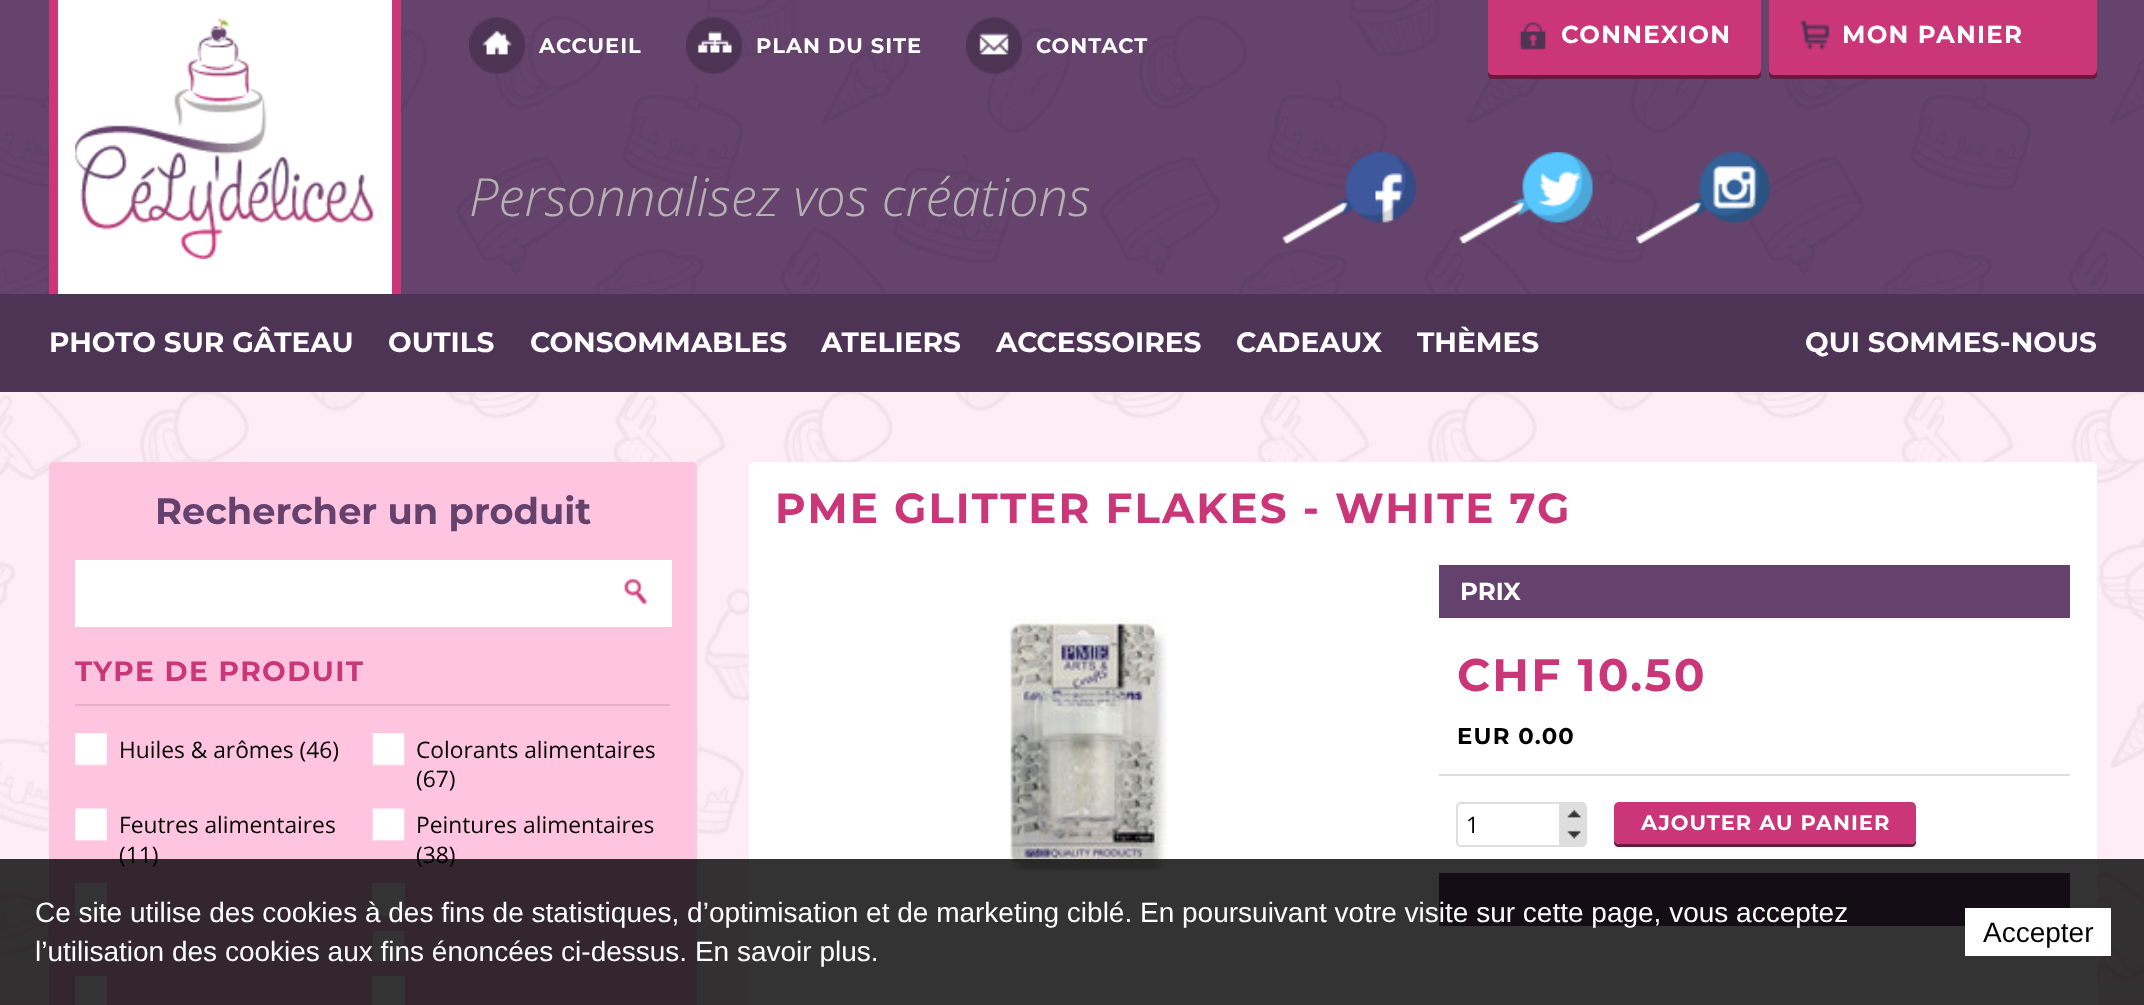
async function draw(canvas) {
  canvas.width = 2144
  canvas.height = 1005
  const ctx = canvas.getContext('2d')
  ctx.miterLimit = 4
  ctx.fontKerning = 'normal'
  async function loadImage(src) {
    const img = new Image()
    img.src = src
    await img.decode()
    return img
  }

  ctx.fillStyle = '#fff'
  ctx.fillRect(0, 0, 2144, 1005)
  ctx.drawImage(await loadImage('image0.png'), 0, 392, 2144, 613)
  ctx.drawImage(await loadImage('image1.png'), 0, 0, 2144, 294)
  ctx.fillRect(58, 0, 334, 294)
  ctx.fillStyle = '#cb3679'
  ctx.fillRect(392, 0, 9, 294)
  ctx.fillRect(49, 0, 9, 294)
  ctx.drawImage(await loadImage('image2.png'), 75, 17, 300, 242)
  ctx.fillStyle = '#661c3d'
  ctx.beginPath()
  ctx.moveTo(1488, 72)
  ctx.lineTo(1488, 74)
  ctx.bezierCurveTo(1488, 77, 1490, 79, 1493, 79)
  ctx.lineTo(1756, 79)
  ctx.bezierCurveTo(1759, 79, 1761, 77, 1761, 74)
  ctx.lineTo(1761, 4)
  ctx.lineTo(1760, 4)
  ctx.lineTo(1760, 70)
  ctx.bezierCurveTo(1760, 73, 1758, 75, 1755, 75)
  ctx.lineTo(1493, 75)
  ctx.bezierCurveTo(1491, 75, 1489, 74, 1488, 72)
  ctx.closePath()
  ctx.fill()
  ctx.fillStyle = '#cb3679'
  ctx.beginPath()
  ctx.roundRect(1488, 0, 273, 75, [0, 0, 5, 5])
  ctx.fill()
  ctx.drawImage(await loadImage('image3.png'), 1519, 22, 27, 28)
  ctx.letterSpacing = '1.25px'
  ctx.font = '100 24.5px Montserrat'
  ctx.fillStyle = '#fff'
  ctx.fillText('CONNEXION', 1561, 43)
  ctx.fillStyle = '#661c3d'
  ctx.beginPath()
  ctx.moveTo(1769, 4)
  ctx.lineTo(1769, 74)
  ctx.bezierCurveTo(1769, 77, 1771, 79, 1774, 79)
  ctx.lineTo(2092, 79)
  ctx.bezierCurveTo(2095, 79, 2097, 77, 2097, 74)
  ctx.lineTo(2097, 4)
  ctx.lineTo(2096, 4)
  ctx.lineTo(2096, 70)
  ctx.bezierCurveTo(2096, 73, 2094, 75, 2091, 75)
  ctx.lineTo(1774, 75)
  ctx.bezierCurveTo(1772, 75, 1769, 73, 1769, 70)
  ctx.closePath()
  ctx.fill()
  ctx.fillStyle = '#cb3679'
  ctx.beginPath()
  ctx.roundRect(1769, 0, 328, 75, [0, 0, 5, 5])
  ctx.fill()
  ctx.drawImage(await loadImage('image4.png'), 1800, 20, 30, 30)
  ctx.fillStyle = '#fff'
  ctx.fillText('MON PANIER', 1842, 43)
  ctx.drawImage(await loadImage('image5.png'), 469, 17, 56, 57)
  ctx.letterSpacing = '1px'
  ctx.font = '100 21px Montserrat'
  ctx.fillText('ACCUEIL', 539, 53)
  ctx.drawImage(await loadImage('image6.png'), 686, 17, 56, 57)
  ctx.fillText('PLAN DU SITE', 756, 53)
  ctx.drawImage(await loadImage('image7.png'), 966, 17, 56, 57)
  ctx.fillText('CONTACT', 1036, 53)
  ctx.letterSpacing = '0px'
  ctx.font = 'italic 300 52.5px Open Sans'
  ctx.fillStyle = '#b4b1b1'
  ctx.fillText('Personnalisez vos créations', 469, 216)
  ctx.drawImage(await loadImage('image8.png'), 1282, 152, 134, 92)
  ctx.drawImage(await loadImage('image9.png'), 1459, 152, 134, 92)
  ctx.drawImage(await loadImage('image10.png'), 1636, 152, 134, 92)
  ctx.fillStyle = '#4d3354'
  ctx.fillRect(0, 294, 2144, 98)
  ctx.font = '100 28px Montserrat'
  ctx.fillStyle = '#fff'
  ctx.fillText('PHOTO SUR GÂTEAU', 49, 352)
  ctx.fillText('OUTILS', 388, 352)
  ctx.fillText('CONSOMMABLES', 530, 352)
  ctx.fillText('ATELIERS', 821, 352)
  ctx.fillText('ACCESSOIRES', 996, 352)
  ctx.fillText('CADEAUX', 1236, 352)
  ctx.fillText('THÈMES', 1417, 352)
  ctx.fillText('QUI SOMMES-NOUS', 1805, 352)
  ctx.fillStyle = '#ffc4df'
  ctx.beginPath()
  ctx.roundRect(49, 462, 648, 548, 5)
  ctx.fill()
  ctx.font = '100 36.75px Montserrat'
  ctx.fillStyle = '#64426d'
  ctx.fillText('Rechercher un produit', 155, 524)
  ctx.fillStyle = '#fff'
  ctx.fillRect(75, 560, 597, 67)
  ctx.drawImage(await loadImage('image11.png'), 624, 578, 24, 27)
  ctx.fillStyle = '#e6b1c8'
  ctx.fillRect(75, 704, 595, 2)
  ctx.letterSpacing = '1.4px'
  ctx.font = '100 28px Montserrat'
  ctx.fillStyle = '#cb3679'
  ctx.fillText('TYPE DE PRODUIT', 75, 681)
  ctx.drawImage(await loadImage('image12.png'), 75, 733, 32, 33)
  ctx.letterSpacing = '0px'
  ctx.font = '22.75px Open Sans'
  ctx.fillStyle = '#000'
  ctx.fillText('Huiles & arômes (46)', 119, 758)
  ctx.drawImage(await loadImage('image13.png'), 372, 733, 33, 33)
  ctx.fillText('Colorants alimentaires', 416, 758)
  ctx.fillText('(67)', 416, 787)
  ctx.drawImage(await loadImage('image14.png'), 75, 808, 32, 33)
  ctx.fillText('Feutres alimentaires', 119, 833)
  ctx.fillText('(11)', 119, 863)
  ctx.drawImage(await loadImage('image15.png'), 372, 808, 33, 33)
  ctx.fillText('Peintures alimentaires', 416, 833)
  ctx.fillText('(38)', 416, 863)
  ctx.fillStyle = '#fff'
  ctx.fillRect(75, 883, 32, 33)
  ctx.fillRect(372, 883, 33, 33)
  ctx.drawImage(await loadImage('image16.png'), 372, 931, 33, 31)
  ctx.fillRect(75, 976, 32, 29)
  ctx.fillRect(372, 976, 33, 29)
  ctx.beginPath()
  ctx.roundRect(749, 462, 1348, 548, 5)
  ctx.fill()
  ctx.letterSpacing = '2.1px'
  ctx.font = '100 42px Montserrat'
  ctx.fillStyle = '#cb3679'
  ctx.fillText('PME GLITTER FLAKES - WHITE 7G', 775, 523)
  ctx.drawImage(await loadImage('image17.png'), 1009, 616, 158, 255)
  ctx.fillStyle = '#64426d'
  ctx.fillRect(1439, 565, 631, 53)
  ctx.letterSpacing = '0px'
  ctx.font = '100 24.5px Montserrat'
  ctx.fillStyle = '#fff'
  ctx.fillText('PRIX', 1460, 600)
  ctx.fillStyle = '#dedede'
  ctx.fillRect(1439, 774, 631, 2)
  ctx.letterSpacing = '2.25px'
  ctx.font = '100 45.5px Montserrat'
  ctx.fillStyle = '#cb3679'
  ctx.fillText('CHF 10.50', 1457, 691)
  ctx.letterSpacing = '1.25px'
  ctx.font = '100 22.75px Montserrat'
  ctx.fillStyle = '#000'
  ctx.fillText('EUR 0.00', 1457, 744)
  ctx.beginPath()
  ctx.roundRect(1457, 803, 103, 43, [4, 0, 0, 4])
  ctx.strokeStyle = '#dedede'
  ctx.lineWidth = 2
  ctx.stroke()
  ctx.letterSpacing = '0px'
  ctx.font = '22.75px Open Sans'
  ctx.fillText('1', 1466, 833)
  ctx.fillStyle = '#dedede'
  ctx.beginPath()
  ctx.roundRect(1561, 802, 26, 22, [0, 5, 0, 0])
  ctx.fill()
  ctx.drawImage(await loadImage('image18.png'), 1567, 809, 14, 9)
  ctx.beginPath()
  ctx.roundRect(1561, 824, 26, 23, [0, 0, 5, 0])
  ctx.fill()
  ctx.drawImage(await loadImage('image19.png'), 1567, 830, 14, 9)
  ctx.fillStyle = '#661c3d'
  ctx.beginPath()
  ctx.moveTo(1614, 840)
  ctx.lineTo(1614, 842)
  ctx.bezierCurveTo(1614, 845, 1616, 847, 1619, 847)
  ctx.lineTo(1911, 847)
  ctx.bezierCurveTo(1914, 847, 1916, 845, 1916, 842)
  ctx.lineTo(1916, 840)
  ctx.bezierCurveTo(1915, 842, 1913, 844, 1911, 844)
  ctx.lineTo(1619, 844)
  ctx.bezierCurveTo(1617, 844, 1615, 842, 1614, 840)
  ctx.closePath()
  ctx.fill()
  ctx.fillStyle = '#cb3679'
  ctx.beginPath()
  ctx.roundRect(1614, 802, 302, 42, 5)
  ctx.fill()
  ctx.letterSpacing = '1px'
  ctx.font = '100 21px Montserrat'
  ctx.fillStyle = '#fff'
  ctx.fillText('AJOUTER AU PANIER', 1641, 830)
  ctx.fillStyle = '#64426d'
  ctx.fillRect(1439, 873, 631, 53)
  ctx.fillStyle = '#000000cc'
  ctx.fillRect(0, 859, 2144, 146)
  ctx.letterSpacing = '0px'
  ctx.font = '28px Liberation Sans'
  ctx.fillStyle = '#fff'
  ctx.fillText('Ce site utilise des cookies à des fins de statistiques, d’optimisation et de marketing ciblé. En poursuivant votre visite sur cette page, vous acceptez', 35, 922)
  ctx.fillText('l’utilisation des cookies aux fins énoncées ci-dessus. En savoir plus.', 35, 961)
  ctx.fillRect(1965, 908, 146, 48)
  ctx.fillStyle = '#000'
  ctx.fillText('Accepter', 1983, 942)
}

draw(document.querySelector('canvas'))
